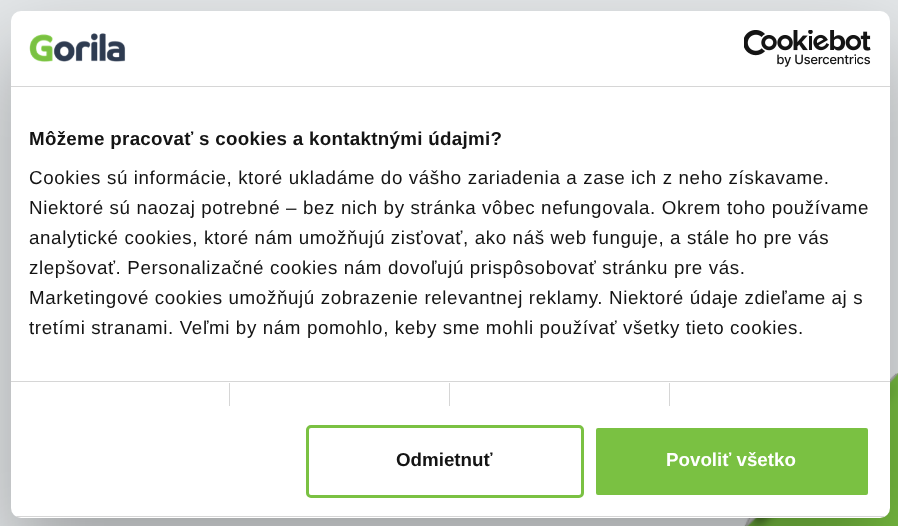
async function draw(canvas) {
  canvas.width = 898
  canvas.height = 526
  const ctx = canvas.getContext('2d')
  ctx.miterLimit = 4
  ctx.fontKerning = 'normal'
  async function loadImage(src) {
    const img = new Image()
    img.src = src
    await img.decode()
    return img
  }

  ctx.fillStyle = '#e4e7e9'
  ctx.fillRect(0, 0, 898, 526)
  ctx.fillStyle = '#7ac142'
  ctx.beginPath()
  ctx.moveTo(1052, 526)
  ctx.lineTo(745, 526)
  ctx.lineTo(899, 372)
  ctx.closePath()
  ctx.fill()
  ctx.drawImage(await loadImage('image2.png'), 744, 373, 154, 153)
  ctx.fillStyle = '#0000004d'
  ctx.filter = 'blur(42.5px)'
  ctx.beginPath()
  ctx.roundRect(11, 51, 879, 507, 10)
  ctx.fill()
  ctx.filter = 'none'
  ctx.fillStyle = '#fff'
  ctx.beginPath()
  ctx.roundRect(11, 11, 879, 507, 10)
  ctx.fill()
  ctx.fillStyle = '#d6d6d6'
  ctx.fillRect(11, 86, 879, 1)
  ctx.drawImage(await loadImage('image0.png'), 29, 33, 97, 29)
  ctx.drawImage(await loadImage('image1.png'), 744, 30, 127, 37)
  ctx.fillRect(11, 381, 879, 1)
  ctx.letterSpacing = '0.3px'
  ctx.font = 'bold 18.75px Liberation Sans'
  ctx.fillStyle = '#141414'
  ctx.fillText('Môžeme pracovať s cookies a kontaktnými údajmi?', 29, 145)
  ctx.letterSpacing = '0.62px'
  ctx.font = '18.75px Liberation Sans'
  ctx.fillText('Cookies sú informácie, ktoré ukladáme do vášho zariadenia a zase ich z neho získavame.', 29, 184)
  ctx.fillText('Niektoré sú naozaj potrebné – bez nich by stránka vôbec nefungovala. Okrem toho používame', 29, 214)
  ctx.fillText('analytické cookies, ktoré nám umožňujú zisťovať, ako náš web funguje, a stále ho pre vás', 29, 244)
  ctx.fillText('zlepšovať. Personalizačné cookies nám dovoľujú prispôsobovať stránku pre vás.', 29, 274)
  ctx.fillText('Marketingové cookies umožňujú zobrazenie relevantnej reklamy. Niektoré údaje zdieľame aj s', 29, 304)
  ctx.fillText('tretími stranami. Veľmi by nám pomohlo, keby sme mohli používať všetky tieto cookies.', 29, 334)
  ctx.fillStyle = '#d6d6d6'
  ctx.fillRect(229, 383, 1, 23)
  ctx.fillRect(449, 383, 1, 23)
  ctx.fillRect(669, 383, 1, 23)
  ctx.save()
  ctx.beginPath()
  ctx.roundRect(11, 11, 879, 507, 10)
  ctx.clip()
  ctx.fillRect(11, 516, 879, 1)
  ctx.restore()
  ctx.beginPath()
  ctx.roundRect(307.5, 426.5, 275, 70, 3.5)
  ctx.strokeStyle = '#7ac142'
  ctx.lineWidth = 3
  ctx.stroke()
  ctx.letterSpacing = '0px'
  ctx.font = 'bold 18.75px Liberation Sans'
  ctx.fillStyle = '#141414'
  ctx.fillText('Odmietnuť', 396, 466)
  ctx.fillStyle = '#7ac142'
  ctx.beginPath()
  ctx.roundRect(594.5, 426.5, 275, 70, 3.5)
  ctx.fill()
  ctx.strokeStyle = '#fff'
  ctx.stroke()
  ctx.fillStyle = '#fff'
  ctx.fillText('Povoliť všetko', 666, 466)
}

draw(document.querySelector('canvas'))
